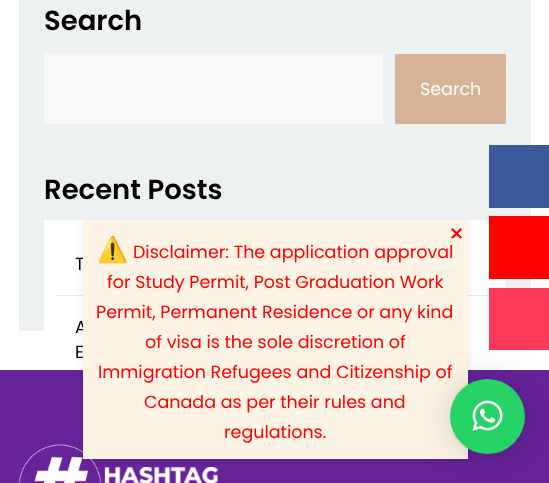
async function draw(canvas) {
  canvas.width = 549
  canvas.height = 483
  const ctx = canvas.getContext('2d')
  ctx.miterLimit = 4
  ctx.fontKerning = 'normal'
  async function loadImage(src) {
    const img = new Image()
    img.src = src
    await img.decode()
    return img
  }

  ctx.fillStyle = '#fff'
  ctx.fillRect(0, 0, 549, 483)
  ctx.fillStyle = '#eef1f2'
  ctx.fillRect(19, 0, 512, 331)
  ctx.font = '600 27.5px Poppins'
  ctx.fillStyle = '#000'
  ctx.fillText('Search', 44, 30)
  ctx.fillStyle = '#f8f8f8'
  ctx.fillRect(44, 54, 339, 70)
  ctx.fillStyle = '#d7b39a'
  ctx.fillRect(395, 54, 111, 70)
  ctx.font = '17.5px Poppins'
  ctx.fillStyle = '#fff'
  ctx.fillText('Search', 420, 95)
  ctx.font = '600 27.5px Poppins'
  ctx.fillStyle = '#000'
  ctx.fillText('Recent Posts', 44, 199)
  ctx.fillStyle = '#fff'
  ctx.fillRect(44, 220, 462, 111)
  ctx.fillStyle = '#e7e7e7'
  ctx.fillRect(56, 295, 438, 1)
  ctx.font = '17.5px Poppins'
  ctx.fillStyle = '#000'
  ctx.fillText('T', 75, 270)
  ctx.fillText('A', 75, 333)
  ctx.fillText('E', 75, 358)
  ctx.fillStyle = '#67239a'
  ctx.fillRect(0, 370, 549, 113)
  ctx.drawImage(await loadImage('image0.png'), 18, 444, 200, 39)
  ctx.fillStyle = '#3b5998'
  ctx.fillRect(489, 145, 60, 63)
  ctx.fillStyle = '#f00'
  ctx.fillRect(489, 216, 60, 63)
  ctx.fillStyle = '#fb3958'
  ctx.fillRect(489, 288, 60, 62)
  ctx.fillStyle = '#0000001a'
  ctx.filter = 'blur(3px)'
  ctx.beginPath()
  ctx.rect(83, 224, 385, 237)
  ctx.fill()
  ctx.filter = 'none'
  ctx.fillStyle = '#fef4e6'
  ctx.fillRect(83, 221, 385, 238)
  ctx.font = 'bold 17.5px DejaVu Sans'
  ctx.fillStyle = '#f00'
  ctx.fillText('✕', 449, 240)
  ctx.font = '25px Noto Color Emoji'
  ctx.fillText('⚠️', 97, 258)
  ctx.font = '17.5px Poppins'
  ctx.fillText('Disclaimer: The application approval', 133, 258)
  ctx.fillText('for Study Permit, Post Graduation Work', 107, 288)
  ctx.fillText('Permit, Permanent Residence or any kind', 96, 318)
  ctx.fillText('of visa is the sole discretion of', 145, 348)
  ctx.fillText('Immigration Refugees and Citizenship of', 98, 378)
  ctx.fillText('Canada as per their rules and', 144, 408)
  ctx.fillText('regulations.', 224, 438)
  ctx.fillStyle = '#00000029'
  ctx.filter = 'blur(20px)'
  ctx.beginPath()
  ctx.roundRect(450, 381, 75, 75, 37.5)
  ctx.fill()
  ctx.filter = 'none'
  ctx.fillStyle = '#0000000f'
  ctx.filter = 'blur(4px)'
  ctx.beginPath()
  ctx.roundRect(450, 380, 75, 75, 37.5)
  ctx.fill()
  ctx.filter = 'none'
  ctx.fillStyle = '#25d366'
  ctx.beginPath()
  ctx.arc(487.5, 416.5, 37.5, 0, 2 * Math.PI)
  ctx.fill()
  ctx.drawImage(await loadImage('image1.png'), 472, 400, 31, 31)
}

draw(document.querySelector('canvas'))
